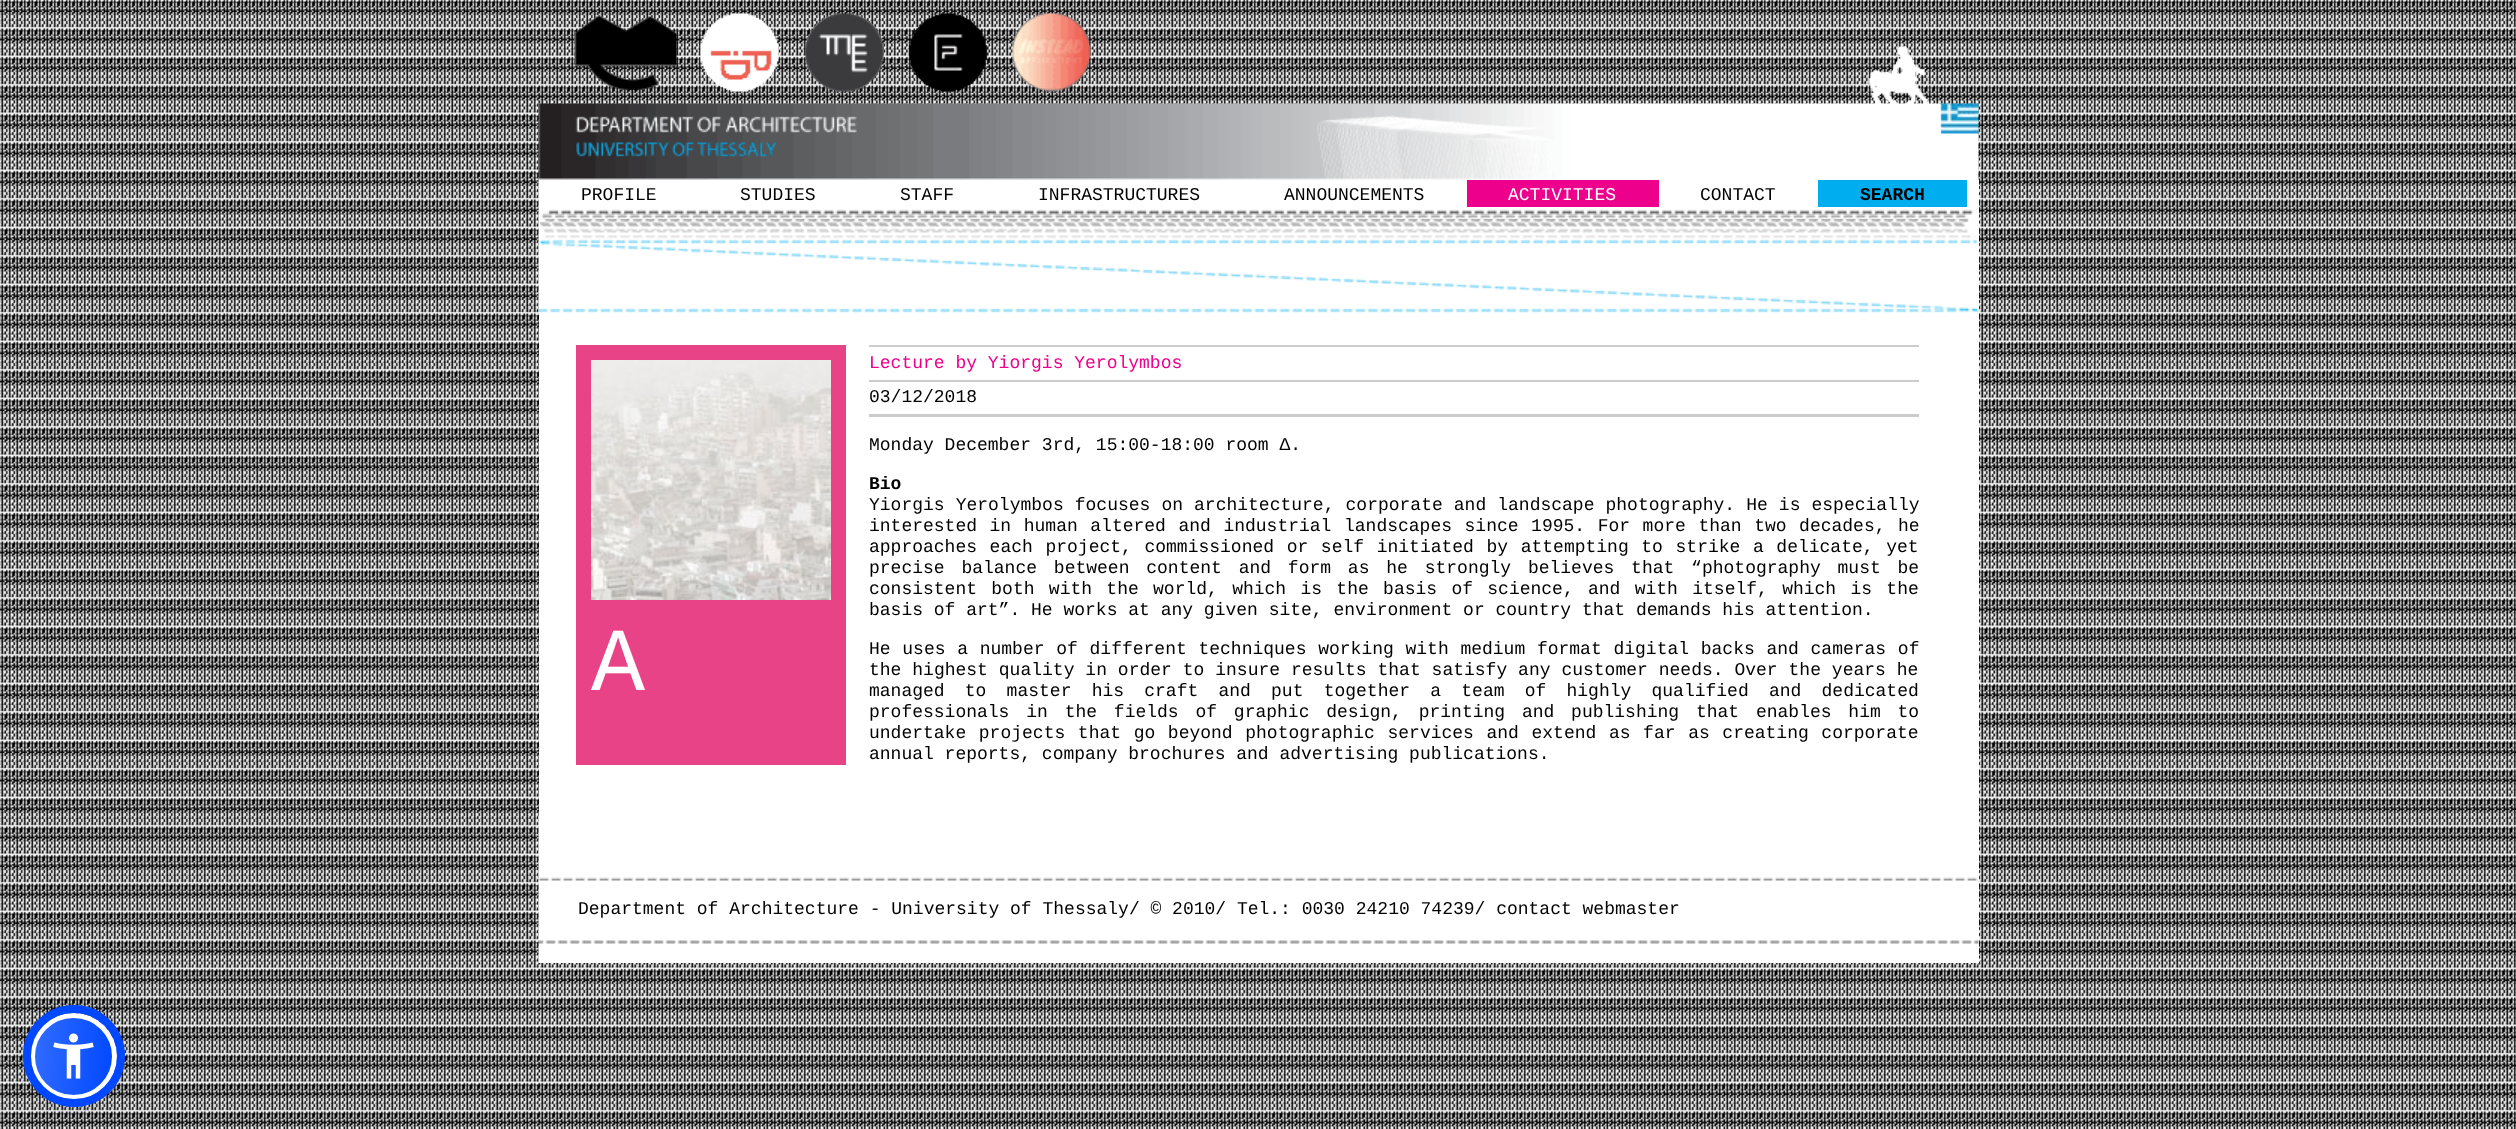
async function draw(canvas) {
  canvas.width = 2516
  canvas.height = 1129
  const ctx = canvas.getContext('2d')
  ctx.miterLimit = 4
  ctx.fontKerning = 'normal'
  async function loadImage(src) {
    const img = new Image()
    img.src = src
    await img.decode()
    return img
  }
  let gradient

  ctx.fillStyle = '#fff'
  ctx.fillRect(0, 0, 2516, 1129)
  ctx.drawImage(await loadImage('image0.png'), 0, 0, 2516, 1129)
  ctx.drawImage(await loadImage('image1.png'), 538, 13, 1441, 167)
  ctx.fillRect(539, 180, 1440, 783)
  ctx.drawImage(await loadImage('image2.png'), 538, 180, 1441, 135)
  ctx.font = '18px Liberation Mono'
  ctx.fillStyle = '#000'
  ctx.fillText('PROFILE', 581, 200)
  ctx.fillText('STUDIES', 740, 200)
  ctx.fillText('STAFF', 900, 200)
  ctx.fillText('INFRASTRUCTURES', 1038, 200)
  ctx.fillText('ANNOUNCEMENTS', 1284, 200)
  ctx.fillStyle = '#ec008c'
  ctx.fillRect(1467, 180, 192, 27)
  ctx.fillStyle = '#fff'
  ctx.fillText('ACTIVITIES', 1508, 200)
  ctx.fillStyle = '#000'
  ctx.fillText('CONTACT', 1700, 200)
  ctx.fillStyle = '#00aeef'
  ctx.fillRect(1818, 180, 149, 27)
  ctx.font = 'bold 18px Liberation Mono'
  ctx.fillStyle = '#000'
  ctx.fillText('SEARCH', 1860, 200)
  ctx.fillStyle = '#e84387'
  ctx.fillRect(576, 345, 270, 420)
  ctx.drawImage(await loadImage('image3.png'), 591, 360, 240, 240)
  ctx.font = '90px Liberation Mono'
  ctx.fillStyle = '#fff'
  ctx.fillText('A', 591, 690)
  ctx.fillStyle = '#ccc'
  ctx.fillRect(869, 345, 1050, 2)
  ctx.fillRect(869, 380, 1050, 2)
  ctx.font = '18px Liberation Mono'
  ctx.fillStyle = '#ec008c'
  ctx.fillText('Lecture by Yiorgis Yerolymbos', 869, 368)
  ctx.fillStyle = '#ccc'
  ctx.fillRect(869, 414, 1050, 3)
  ctx.fillStyle = '#000'
  ctx.fillText('03/12/2018', 869, 402)
  ctx.fillText('Monday December 3rd, 15:00-18:00 room Δ.', 869, 450)
  ctx.font = 'bold 18px Liberation Mono'
  ctx.fillText('Bio', 869, 489)
  ctx.wordSpacing = '0.25px'
  ctx.font = '18px Liberation Mono'
  ctx.fillText('Yiorgis Yerolymbos focuses on architecture, corporate and landscape photography. He is especially', 869, 510)
  ctx.wordSpacing = '1.75px'
  ctx.fillText('interested in human altered and industrial landscapes since 1995. For more than two decades, he', 869, 531)
  ctx.wordSpacing = '1.8px'
  ctx.fillText('approaches each project, commissioned or self initiated by attempting to strike a delicate, yet', 869, 552)
  ctx.wordSpacing = '6px'
  ctx.fillText('precise balance between content and form as he strongly believes that “photography must be', 869, 573)
  ctx.wordSpacing = '3.5px'
  ctx.fillText('consistent both with the world, which is the basis of science, and with itself, which is the', 869, 594)
  ctx.wordSpacing = '0px'
  ctx.fillText('basis of art”. He works at any given site, environment or country that demands his attention.', 869, 615)
  ctx.wordSpacing = '0.9px'
  ctx.fillText('He uses a number of different techniques working with medium format digital backs and cameras of', 869, 654)
  ctx.wordSpacing = '0.1px'
  ctx.fillText('the highest quality in order to insure results that satisfy any customer needs. Over the years he', 869, 675)
  ctx.wordSpacing = '9.4px'
  ctx.fillText('managed to master his craft and put together a team of highly qualified and dedicated', 869, 696)
  ctx.wordSpacing = '6px'
  ctx.fillText('professionals in the fields of graphic design, printing and publishing that enables him to', 869, 717)
  ctx.wordSpacing = '1.8px'
  ctx.fillText('undertake projects that go beyond photographic services and extend as far as creating corporate', 869, 738)
  ctx.wordSpacing = '0px'
  ctx.fillText('annual reports, company brochures and advertising publications.', 869, 759)
  ctx.drawImage(await loadImage('image4.png'), 538, 816, 1441, 147)
  ctx.fillText('Department of Architecture - University of Thessaly/ © 2010/ Tel.: 0030 24210 74239/ contact webmaster', 578, 914)
  ctx.fillStyle = '#5d649433'
  ctx.filter = 'blur(3px)'
  ctx.beginPath()
  ctx.roundRect(30, 1016, 87, 87, 43.5)
  ctx.fill()
  ctx.filter = 'none'
  ctx.fillStyle = '#252c6126'
  ctx.filter = 'blur(11px)'
  ctx.beginPath()
  ctx.roundRect(30, 1020, 87, 87, 43.5)
  ctx.fill()
  ctx.filter = 'none'
  ctx.save()
  ctx.beginPath()
  ctx.roundRect(30, 1013, 87, 87, 43.5)
  ctx.clip()
  gradient = ctx.createLinearGradient(31, 1052, 116, 1060)
  gradient.addColorStop(0, '#326cff')
  gradient.addColorStop(1, '#0048ff')
  ctx.fillStyle = gradient
  ctx.fillRect(35, 1017, 78, 78)
  ctx.restore()
  ctx.beginPath()
  ctx.arc(73.5, 1056.5, 41, 0, 2 * Math.PI)
  ctx.strokeStyle = '#fff'
  ctx.lineWidth = 5
  ctx.stroke()
  ctx.beginPath()
  ctx.arc(74, 1056, 47, 0, 2 * Math.PI)
  ctx.strokeStyle = '#0048ff'
  ctx.lineWidth = 8
  ctx.stroke()
  ctx.drawImage(await loadImage('image5.png'), 53, 1033, 41, 46)
}

draw(document.querySelector('canvas'))
